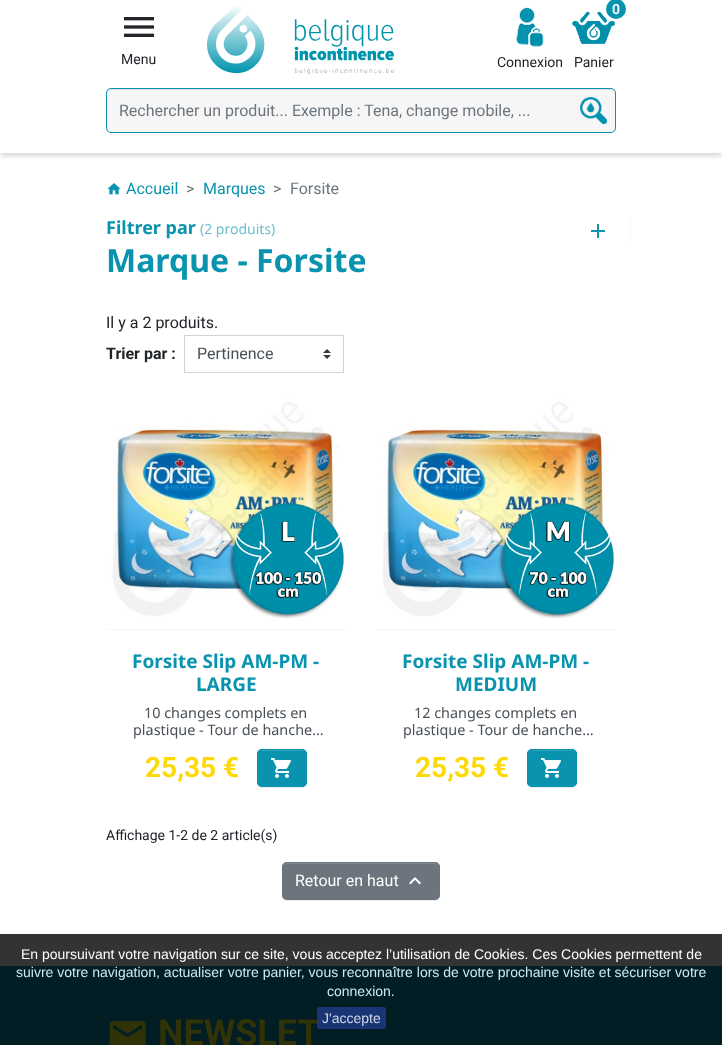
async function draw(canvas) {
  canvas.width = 722
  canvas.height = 1045
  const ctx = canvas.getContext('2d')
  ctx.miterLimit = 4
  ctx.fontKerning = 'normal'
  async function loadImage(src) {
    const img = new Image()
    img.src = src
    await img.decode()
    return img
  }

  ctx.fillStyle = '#fff'
  ctx.fillRect(0, 0, 722, 1045)
  ctx.fillStyle = '#333'
  ctx.fillRect(0, 934, 722, 32)
  ctx.save()
  ctx.beginPath()
  ctx.rect(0, 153, 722, 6)
  ctx.clip()
  ctx.fillStyle = '#00000033'
  ctx.filter = 'blur(3px)'
  ctx.beginPath()
  ctx.rect(0, 2, 722, 153)
  ctx.fill()
  ctx.filter = 'none'
  ctx.restore()
  ctx.drawImage(await loadImage('image0.png'), 124, 17, 30, 20)
  ctx.font = '14px Roboto'
  ctx.fillStyle = '#212529'
  ctx.fillText('Menu', 121, 64)
  ctx.drawImage(await loadImage('image1.png'), 207, 5, 187, 69)
  ctx.drawImage(await loadImage('image2.png'), 516, 7, 28, 40)
  ctx.fillText('Connexion', 497, 67)
  ctx.drawImage(await loadImage('image3.png'), 572, 11, 43, 33)
  ctx.fillStyle = '#0993ae'
  ctx.beginPath()
  ctx.arc(616, 9, 10, 0, 2 * Math.PI)
  ctx.fill()
  ctx.font = '600 14px Roboto'
  ctx.fillStyle = '#fff'
  ctx.fillText('0', 612, 14)
  ctx.font = '14px Roboto'
  ctx.fillStyle = '#212529'
  ctx.fillText('Panier', 574, 67)
  ctx.fillStyle = '#f6f6f6'
  ctx.beginPath()
  ctx.roundRect(106, 88, 510, 45, 5)
  ctx.fill()
  ctx.fillStyle = '#e4e4e4'
  ctx.beginPath()
  ctx.moveTo(111, 90)
  ctx.lineTo(611, 90)
  ctx.bezierCurveTo(613, 90, 615, 92, 615, 94)
  ctx.lineTo(615, 93)
  ctx.bezierCurveTo(615, 91, 613, 89, 611, 89)
  ctx.lineTo(111, 89)
  ctx.bezierCurveTo(109, 89, 107, 91, 107, 93)
  ctx.lineTo(107, 94)
  ctx.bezierCurveTo(107, 92, 109, 90, 111, 90)
  ctx.closePath()
  ctx.fill()
  ctx.beginPath()
  ctx.roundRect(106.5, 88.5, 509, 44, 4.5)
  ctx.strokeStyle = '#0993ae'
  ctx.stroke()
  ctx.font = '16px Roboto'
  ctx.fillStyle = '#6c757d'
  ctx.fillText('Rechercher un produit... Exemple : Tena, change mobile, ...', 119, 116)
  ctx.drawImage(await loadImage('image4.png'), 580, 97, 27, 27)
  ctx.drawImage(await loadImage('image5.png'), 107, 183, 14, 12)
  ctx.fillStyle = '#0993ae'
  ctx.fillText('Accueil', 126, 194)
  ctx.fillStyle = '#6c757d'
  ctx.fillText('>', 186, 194)
  ctx.fillStyle = '#0993ae'
  ctx.fillText('Marques', 203, 194)
  ctx.fillStyle = '#6c757d'
  ctx.fillText('>', 273, 194)
  ctx.fillText('Forsite', 290, 194)
  ctx.fillStyle = '#f6f6f6'
  ctx.fillRect(630, 217, 1, 24)
  ctx.font = 'bold 18px Noto Sans'
  ctx.fillStyle = '#0993ae'
  ctx.fillText('Filtrer par', 106, 234)
  ctx.font = '14px Noto Sans'
  ctx.fillStyle = '#6bbece'
  ctx.fillText('(2 produits)', 200, 234)
  ctx.drawImage(await loadImage('image6.png'), 591, 224, 14, 14)
  ctx.font = 'bold 32px Noto Sans'
  ctx.fillStyle = '#0993ae'
  ctx.fillText('Marque - Forsite', 106, 272)
  ctx.font = '16px Roboto'
  ctx.fillStyle = '#212529'
  ctx.fillText('Il y a 2 produits.', 106, 328)
  ctx.font = 'bold 16px Roboto'
  ctx.fillText('Trier par :', 106, 359)
  ctx.drawImage(await loadImage('image7.png'), 323, 349, 8, 10)
  ctx.strokeStyle = '#ced4da'
  ctx.strokeRect(184.5, 335.5, 159, 37)
  ctx.font = '16px Roboto'
  ctx.fillStyle = '#495057'
  ctx.fillText('Pertinence', 197, 359)
  ctx.drawImage(await loadImage('image8.png'), 106, 389, 240, 240)
  ctx.drawImage(await loadImage('image9.png'), 228, 503, 116, 116)
  ctx.fillStyle = '#f6f6f6'
  ctx.fillRect(106, 629, 240, 1)
  ctx.font = 'bold 19px Noto Sans'
  ctx.fillStyle = '#0993ae'
  ctx.fillText('Forsite Slip AM-PM -', 132, 668)
  ctx.fillText('LARGE', 196, 691)
  ctx.font = '14.4px Noto Sans'
  ctx.fillStyle = '#495057'
  ctx.fillText('10 changes complets en', 144, 718)
  ctx.fillText('plastique - Tour de hanche…', 133, 735)
  ctx.font = 'bold 28px Roboto'
  ctx.fillStyle = '#fed908'
  ctx.fillText('25,35 €', 145, 777)
  ctx.fillStyle = '#00000012'
  ctx.filter = 'blur(0.5px)'
  ctx.beginPath()
  ctx.roundRect(257, 750, 50, 38, 5)
  ctx.fill()
  ctx.filter = 'none'
  ctx.fillStyle = '#0993ae'
  ctx.beginPath()
  ctx.roundRect(257, 749, 50, 38, 5)
  ctx.fill()
  ctx.fillStyle = '#2ea3ba'
  ctx.beginPath()
  ctx.moveTo(262, 751)
  ctx.lineTo(302, 751)
  ctx.bezierCurveTo(304, 751, 306, 753, 306, 755)
  ctx.bezierCurveTo(306, 749, 300, 750, 295, 750)
  ctx.lineTo(269, 750)
  ctx.bezierCurveTo(264, 750, 258, 749, 258, 755)
  ctx.bezierCurveTo(258, 753, 260, 751, 262, 751)
  ctx.closePath()
  ctx.fill()
  ctx.beginPath()
  ctx.roundRect(257.5, 749.5, 49, 37, 4.5)
  ctx.strokeStyle = '#0993ae'
  ctx.stroke()
  ctx.drawImage(await loadImage('image10.png'), 271, 758, 20, 20)
  ctx.drawImage(await loadImage('image11.png'), 376, 389, 240, 240)
  ctx.drawImage(await loadImage('image12.png'), 498, 503, 116, 116)
  ctx.fillStyle = '#f6f6f6'
  ctx.fillRect(376, 629, 240, 1)
  ctx.font = 'bold 19px Noto Sans'
  ctx.fillStyle = '#0993ae'
  ctx.fillText('Forsite Slip AM-PM -', 402, 668)
  ctx.fillText('MEDIUM', 455, 691)
  ctx.font = '14.4px Noto Sans'
  ctx.fillStyle = '#495057'
  ctx.fillText('12 changes complets en', 414, 718)
  ctx.fillText('plastique - Tour de hanche…', 403, 735)
  ctx.font = 'bold 28px Roboto'
  ctx.fillStyle = '#fed908'
  ctx.fillText('25,35 €', 415, 777)
  ctx.fillStyle = '#00000012'
  ctx.filter = 'blur(0.5px)'
  ctx.beginPath()
  ctx.roundRect(527, 750, 50, 38, 5)
  ctx.fill()
  ctx.filter = 'none'
  ctx.fillStyle = '#0993ae'
  ctx.beginPath()
  ctx.roundRect(527, 749, 50, 38, 5)
  ctx.fill()
  ctx.fillStyle = '#2ea3ba'
  ctx.beginPath()
  ctx.moveTo(532, 751)
  ctx.lineTo(572, 751)
  ctx.bezierCurveTo(574, 751, 576, 753, 576, 755)
  ctx.bezierCurveTo(576, 749, 570, 750, 565, 750)
  ctx.lineTo(539, 750)
  ctx.bezierCurveTo(534, 750, 528, 749, 528, 755)
  ctx.bezierCurveTo(528, 753, 530, 751, 532, 751)
  ctx.closePath()
  ctx.fill()
  ctx.beginPath()
  ctx.roundRect(527.5, 749.5, 49, 37, 4.5)
  ctx.stroke()
  ctx.drawImage(await loadImage('image10.png'), 541, 758, 20, 20)
  ctx.font = '14px Roboto'
  ctx.fillStyle = '#212529'
  ctx.fillText('Affichage 1-2 de 2 article(s)', 106, 840)
  ctx.fillStyle = '#00000012'
  ctx.filter = 'blur(0.5px)'
  ctx.beginPath()
  ctx.roundRect(282, 863, 158, 38, 5)
  ctx.fill()
  ctx.filter = 'none'
  ctx.fillStyle = '#6c757d'
  ctx.beginPath()
  ctx.roundRect(282, 862, 158, 38, 5)
  ctx.fill()
  ctx.fillStyle = '#828a91'
  ctx.beginPath()
  ctx.moveTo(287, 864)
  ctx.lineTo(435, 864)
  ctx.bezierCurveTo(437, 864, 439, 866, 439, 868)
  ctx.bezierCurveTo(439, 866, 438, 864, 436, 863)
  ctx.lineTo(286, 863)
  ctx.bezierCurveTo(284, 864, 283, 866, 283, 868)
  ctx.bezierCurveTo(283, 866, 285, 864, 287, 864)
  ctx.closePath()
  ctx.fill()
  ctx.beginPath()
  ctx.roundRect(282.5, 862.5, 157, 37, 4.5)
  ctx.strokeStyle = '#6c757d'
  ctx.stroke()
  ctx.font = '16px Roboto'
  ctx.fillStyle = '#fff'
  ctx.fillText('Retour en haut', 295, 886)
  ctx.drawImage(await loadImage('image13.png'), 409, 877, 12, 8)
  ctx.font = '14px Liberation Sans'
  ctx.fillText('En poursuivant votre navigation sur ce site, vous acceptez l’utilisation de Cookies. Ces Cookies permettent de', 21, 959)
  ctx.fillStyle = '#021d23'
  ctx.fillRect(0, 966, 722, 79)
  ctx.fillStyle = '#cee9ef'
  ctx.fillText('suivre votre navigation, actualiser votre panier, vous reconnaître lors de votre prochaine visite et sécuriser votre', 16, 977)
  ctx.fillText('connexion.', 327, 996)
  ctx.font = 'bold 36px Roboto'
  ctx.fillStyle = '#303307'
  ctx.fillText('NEWSLET', 158, 1045)
  ctx.fillStyle = '#203c89cc'
  ctx.beginPath()
  ctx.roundRect(317, 1007, 69, 22, 2)
  ctx.fill()
  ctx.font = '14px Liberation Sans'
  ctx.fillStyle = '#d2d7e3'
  ctx.fillText('J\'accepte', 322, 1023)
  ctx.drawImage(await loadImage('image14.png'), 109, 1021, 37, 24)
}

draw(document.querySelector('canvas'))
